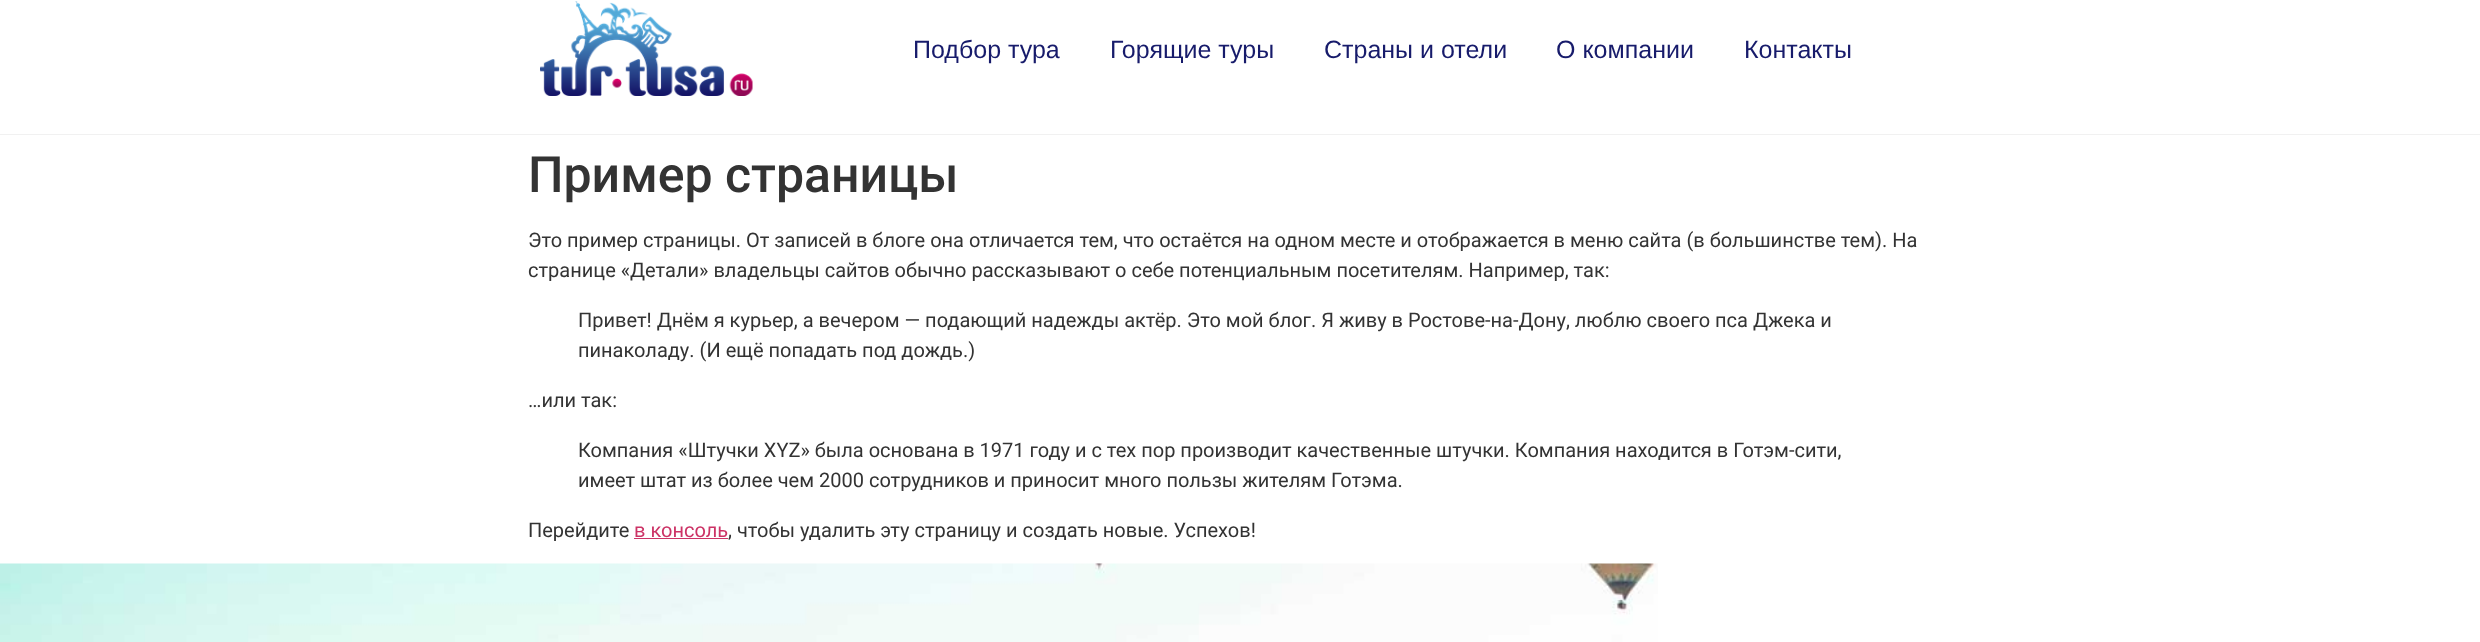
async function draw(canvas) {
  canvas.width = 2480
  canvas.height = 642
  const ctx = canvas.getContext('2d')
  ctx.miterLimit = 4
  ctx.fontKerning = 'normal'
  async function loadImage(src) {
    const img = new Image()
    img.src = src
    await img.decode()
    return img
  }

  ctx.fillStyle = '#fff'
  ctx.fillRect(0, 0, 2480, 642)
  ctx.fillStyle = '#f1f1f1'
  ctx.fillRect(0, 134, 2480, 1)
  ctx.drawImage(await loadImage('image0.png'), 540, 1, 213, 95)
  ctx.font = '25px Liberation Sans'
  ctx.fillStyle = '#171b6b'
  ctx.fillText('Подбор тура', 913, 58)
  ctx.fillText('Горящие туры', 1110, 58)
  ctx.fillText('Страны и отели', 1324, 58)
  ctx.fillText('О компании', 1556, 58)
  ctx.fillText('Контакты', 1744, 58)
  ctx.font = '500 50px Roboto'
  ctx.fillStyle = '#333'
  ctx.fillText('Пример страницы', 528, 192)
  ctx.font = '20px Roboto'
  ctx.fillText('Это пример страницы. От записей в блоге она отличается тем, что остаётся на одном месте и отображается в меню сайта (в большинстве тем). На', 528, 247)
  ctx.fillText('странице «Детали» владельцы сайтов обычно рассказывают о себе потенциальным посетителям. Например, так:', 528, 277)
  ctx.fillText('Привет! Днём я курьер, а вечером — подающий надежды актёр. Это мой блог. Я живу в Ростове-на-Дону, люблю своего пса Джека и', 578, 327)
  ctx.fillText('пинаколаду. (И ещё попадать под дождь.)', 578, 357)
  ctx.fillText('…или так:', 528, 407)
  ctx.fillText('Компания «Штучки XYZ» была основана в 1971 году и с тех пор производит качественные штучки. Компания находится в Готэм-сити,', 578, 457)
  ctx.fillText('имеет штат из более чем 2000 сотрудников и приносит много пользы жителям Готэма.', 578, 487)
  ctx.fillText('Перейдите', 528, 537)
  ctx.fillStyle = '#c36'
  ctx.fillText('в консоль', 634, 537)
  ctx.fillRect(634, 538, 94, 1)
  ctx.fillStyle = '#333'
  ctx.fillText(', чтобы удалить эту страницу и создать новые. Успехов!', 728, 537)
  ctx.drawImage(await loadImage('image1.png'), 0, 563, 1658, 79)
}

draw(document.querySelector('canvas'))
